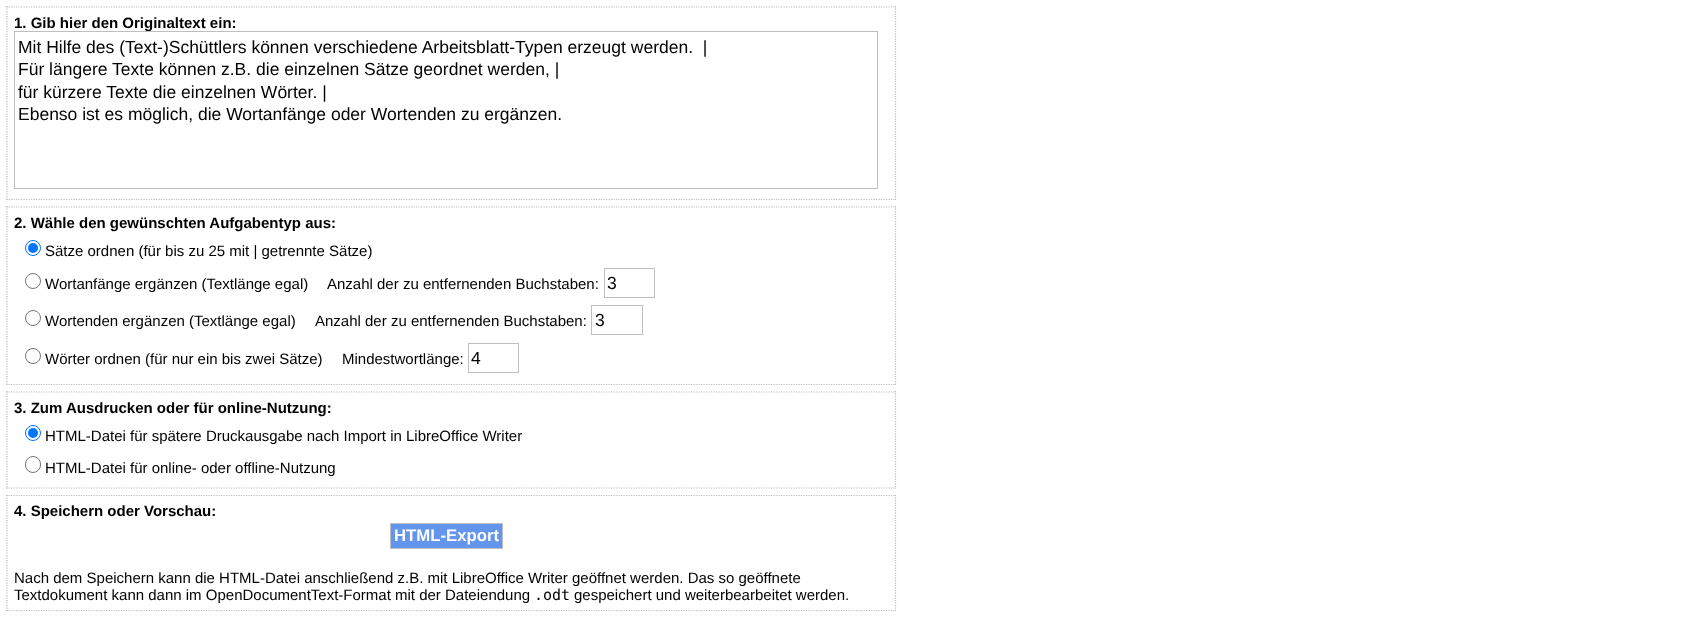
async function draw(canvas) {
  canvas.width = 1691
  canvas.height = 639
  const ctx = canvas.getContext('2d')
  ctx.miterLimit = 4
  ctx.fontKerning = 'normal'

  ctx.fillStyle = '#fff'
  ctx.fillRect(0, 0, 1691, 639)
  ctx.beginPath()
  ctx.moveTo(6, 7)
  ctx.lineTo(896, 7)
  ctx.strokeStyle = '#bebebe'
  ctx.lineWidth = 1.2
  ctx.setLineDash([1.25, 1.25])
  ctx.stroke()
  ctx.beginPath()
  ctx.moveTo(895.5, 6)
  ctx.lineTo(895.5, 200)
  ctx.stroke()
  ctx.beginPath()
  ctx.moveTo(6, 199.5)
  ctx.lineTo(896, 199.5)
  ctx.stroke()
  ctx.beginPath()
  ctx.moveTo(7, 6)
  ctx.lineTo(7, 200)
  ctx.stroke()
  ctx.font = 'bold 15px Liberation Sans'
  ctx.fillStyle = '#000'
  ctx.fillText('1. Gib hier den Originaltext ein:', 14, 28)
  ctx.lineWidth = 1
  ctx.setLineDash([])
  ctx.strokeRect(14.5, 31.5, 863, 157)
  ctx.font = '17.5px Liberation Sans'
  ctx.fillText('Mit Hilfe des (Text-)Schüttlers können verschiedene Arbeitsblatt-Typen erzeugt werden.  |', 18, 53)
  ctx.fillText('Für längere Texte können z.B. die einzelnen Sätze geordnet werden, |', 18, 75)
  ctx.fillText('für kürzere Texte die einzelnen Wörter. |', 18, 98)
  ctx.fillText('Ebenso ist es möglich, die Wortanfänge oder Wortenden zu ergänzen.', 18, 120)
  ctx.beginPath()
  ctx.moveTo(6, 207)
  ctx.lineTo(896, 207)
  ctx.lineWidth = 1.2
  ctx.setLineDash([1.25, 1.25])
  ctx.stroke()
  ctx.beginPath()
  ctx.moveTo(895.5, 206)
  ctx.lineTo(895.5, 385)
  ctx.stroke()
  ctx.beginPath()
  ctx.moveTo(6, 384.5)
  ctx.lineTo(896, 384.5)
  ctx.stroke()
  ctx.beginPath()
  ctx.moveTo(7, 206)
  ctx.lineTo(7, 385)
  ctx.stroke()
  ctx.font = 'bold 15px Liberation Sans'
  ctx.fillText('2. Wähle den gewünschten Aufgabentyp aus:', 14, 228)
  ctx.beginPath()
  ctx.arc(33, 248, 7.5, 0, 2 * Math.PI)
  ctx.strokeStyle = '#0075ff'
  ctx.lineWidth = 1
  ctx.setLineDash([])
  ctx.stroke()
  ctx.fillStyle = '#0075ff'
  ctx.beginPath()
  ctx.arc(33, 248, 5, 0, 2 * Math.PI)
  ctx.fill()
  ctx.font = '15px Liberation Sans'
  ctx.fillStyle = '#000'
  ctx.fillText('Sätze ordnen (für bis zu 25 mit | getrennte Sätze)', 45, 256)
  ctx.beginPath()
  ctx.arc(33, 281, 7.5, 0, 2 * Math.PI)
  ctx.strokeStyle = '#767676'
  ctx.stroke()
  ctx.fillText('Wortanfänge ergänzen (Textlänge egal)', 45, 289)
  ctx.fillText('Anzahl der zu entfernenden Buchstaben:', 327, 289)
  ctx.strokeStyle = '#bebebe'
  ctx.strokeRect(604.5, 268.5, 50, 29)
  ctx.font = '17.5px Liberation Sans'
  ctx.fillText('3', 607, 289)
  ctx.beginPath()
  ctx.arc(33, 318, 7.5, 0, 2 * Math.PI)
  ctx.strokeStyle = '#767676'
  ctx.stroke()
  ctx.font = '15px Liberation Sans'
  ctx.fillText('Wortenden ergänzen (Textlänge egal)', 45, 326)
  ctx.fillText('Anzahl der zu entfernenden Buchstaben:', 315, 326)
  ctx.strokeStyle = '#bebebe'
  ctx.strokeRect(591.5, 305.5, 51, 29)
  ctx.font = '17.5px Liberation Sans'
  ctx.fillText('3', 595, 326)
  ctx.beginPath()
  ctx.arc(33, 356, 7.5, 0, 2 * Math.PI)
  ctx.strokeStyle = '#767676'
  ctx.stroke()
  ctx.font = '15px Liberation Sans'
  ctx.fillText('Wörter ordnen (für nur ein bis zwei Sätze)', 45, 364)
  ctx.fillText('Mindestwortlänge:', 342, 364)
  ctx.strokeStyle = '#bebebe'
  ctx.strokeRect(468.5, 343.5, 50, 29)
  ctx.font = '17.5px Liberation Sans'
  ctx.fillText('4', 471, 364)
  ctx.beginPath()
  ctx.moveTo(6, 392)
  ctx.lineTo(896, 392)
  ctx.lineWidth = 1.2
  ctx.setLineDash([1.25, 1.25])
  ctx.stroke()
  ctx.beginPath()
  ctx.moveTo(895.5, 391)
  ctx.lineTo(895.5, 489)
  ctx.stroke()
  ctx.beginPath()
  ctx.moveTo(6, 488)
  ctx.lineTo(896, 488)
  ctx.stroke()
  ctx.beginPath()
  ctx.moveTo(7, 391)
  ctx.lineTo(7, 489)
  ctx.stroke()
  ctx.font = 'bold 15px Liberation Sans'
  ctx.fillText('3. Zum Ausdrucken oder für online-Nutzung:', 14, 413)
  ctx.beginPath()
  ctx.arc(33, 433, 7.5, 0, 2 * Math.PI)
  ctx.strokeStyle = '#0075ff'
  ctx.lineWidth = 1
  ctx.setLineDash([])
  ctx.stroke()
  ctx.fillStyle = '#0075ff'
  ctx.beginPath()
  ctx.arc(33, 433, 5, 0, 2 * Math.PI)
  ctx.fill()
  ctx.font = '15px Liberation Sans'
  ctx.fillStyle = '#000'
  ctx.fillText('HTML-Datei für spätere Druckausgabe nach Import in LibreOffice Writer', 45, 441)
  ctx.beginPath()
  ctx.roundRect(25.5, 456.5, 15, 16, 7.5)
  ctx.strokeStyle = '#767676'
  ctx.stroke()
  ctx.fillText('HTML-Datei für online- oder offline-Nutzung', 45, 473)
  ctx.beginPath()
  ctx.moveTo(6, 495.5)
  ctx.lineTo(896, 495.5)
  ctx.strokeStyle = '#bebebe'
  ctx.lineWidth = 1.2
  ctx.setLineDash([1.25, 1.25])
  ctx.stroke()
  ctx.beginPath()
  ctx.moveTo(895.5, 495)
  ctx.lineTo(895.5, 611)
  ctx.stroke()
  ctx.beginPath()
  ctx.moveTo(6, 610.5)
  ctx.lineTo(896, 610.5)
  ctx.stroke()
  ctx.beginPath()
  ctx.moveTo(7, 495)
  ctx.lineTo(7, 611)
  ctx.stroke()
  ctx.font = 'bold 15px Liberation Sans'
  ctx.fillText('4. Speichern oder Vorschau:', 14, 516)
  ctx.fillStyle = '#6495ed'
  ctx.beginPath()
  ctx.rect(390.5, 523.5, 112, 25)
  ctx.fill()
  ctx.lineWidth = 1
  ctx.setLineDash([])
  ctx.stroke()
  ctx.font = 'bold 16.75px Liberation Sans'
  ctx.fillStyle = '#fff'
  ctx.fillText('HTML-Export', 394, 541)
  ctx.font = '15px Liberation Sans'
  ctx.fillStyle = '#000'
  ctx.fillText('Nach dem Speichern kann die HTML-Datei anschließend z.B. mit LibreOffice Writer geöffnet werden. Das so geöffnete', 14, 583)
  ctx.fillText('Textdokument kann dann im OpenDocumentText-Format mit der Dateiendung', 14, 600)
  ctx.font = '15px DejaVu Sans Mono'
  ctx.fillText('.odt', 534, 600)
  ctx.font = '15px Liberation Sans'
  ctx.fillText('gespeichert und weiterbearbeitet werden.', 574, 600)
}

draw(document.querySelector('canvas'))
